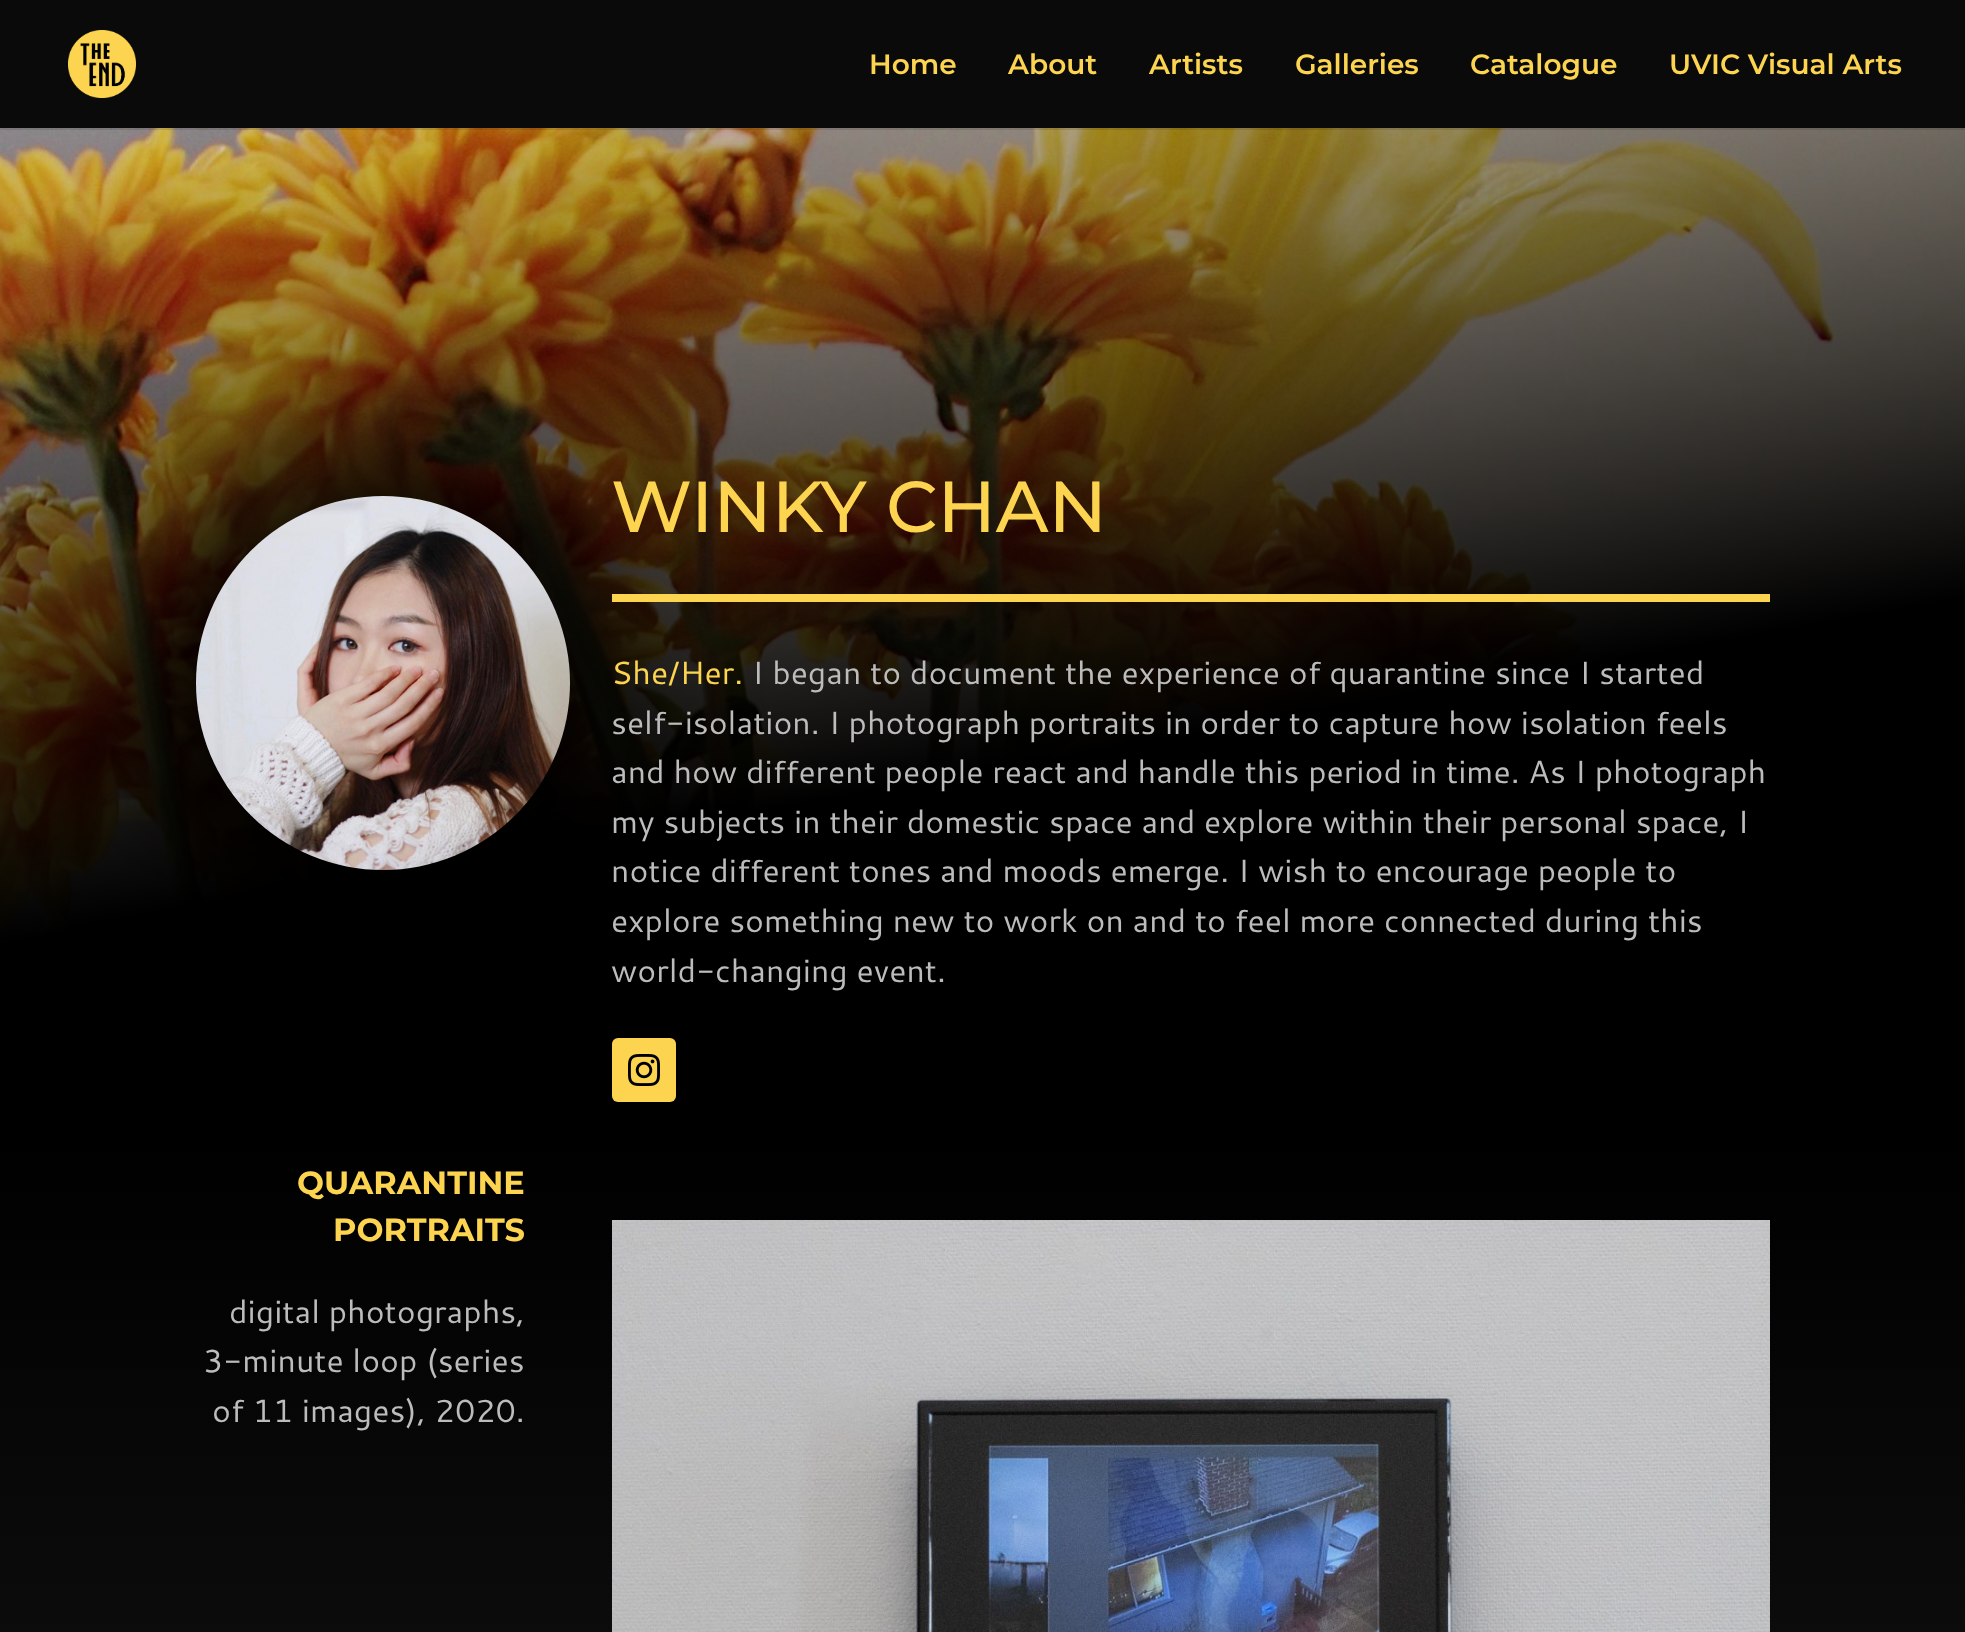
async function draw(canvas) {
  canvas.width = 1965
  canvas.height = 1632
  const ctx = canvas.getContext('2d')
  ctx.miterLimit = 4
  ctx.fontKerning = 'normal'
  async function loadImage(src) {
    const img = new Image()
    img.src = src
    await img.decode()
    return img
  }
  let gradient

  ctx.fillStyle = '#fff'
  ctx.fillRect(0, 0, 1965, 1632)
  ctx.drawImage(await loadImage('image1.png'), 0, 128, 1965, 1014)
  ctx.fillStyle = '#0000001a'
  ctx.fillRect(0, 128, 1965, 2)
  ctx.fillStyle = '#0a0a0a'
  ctx.fillRect(0, 0, 1965, 128)
  ctx.drawImage(await loadImage('image0.png'), 68, 30, 68, 68)
  ctx.font = '600 28px Montserrat'
  ctx.fillStyle = '#fcd450'
  ctx.fillText('Home', 869, 74)
  ctx.fillText('About', 1008, 74)
  ctx.fillText('Artists', 1149, 74)
  ctx.fillText('Galleries', 1295, 74)
  ctx.fillText('Catalogue', 1470, 74)
  ctx.fillText('UVIC Visual Arts', 1669, 74)
  gradient = ctx.createLinearGradient(983, 1142, 983, 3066)
  gradient.addColorStop(0, '#000')
  gradient.addColorStop(1, '#2d2d2d')
  ctx.fillStyle = gradient
  ctx.fillRect(0, 1142, 1965, 490)
  ctx.fillStyle = '#000'
  ctx.filter = 'blur(67px)'
  ctx.beginPath()
  ctx.roundRect(158, 462, 450, 450, 225)
  ctx.fill()
  ctx.filter = 'none'
  ctx.drawImage(await loadImage('image2.png'), 196, 496, 374, 374)
  ctx.font = '500 72px Montserrat'
  ctx.fillStyle = '#fcd450'
  ctx.fillText('WINKY CHAN', 611, 532)
  ctx.fillRect(612, 594, 1158, 8)
  ctx.font = '32px Cantarell'
  ctx.fillText('She/Her.', 611, 684)
  ctx.fillStyle = '#bcbcbc'
  ctx.fillText('I began to document the experience of quarantine since I started', 752, 684)
  ctx.fillText('self-isolation. I photograph portraits in order to capture how isolation feels', 611, 734)
  ctx.fillText('and how different people react and handle this period in time. As I photograph', 611, 783)
  ctx.fillText('my subjects in their domestic space and explore within their personal space, I', 611, 833)
  ctx.fillText('notice different tones and moods emerge. I wish to encourage people to', 611, 882)
  ctx.fillText('explore something new to work on and to feel more connected during this', 611, 932)
  ctx.fillText('world-changing event.', 611, 982)
  ctx.fillStyle = '#fcd450'
  ctx.beginPath()
  ctx.roundRect(612, 1038, 64, 64, 6)
  ctx.fill()
  ctx.drawImage(await loadImage('image3.png'), 628, 1054, 32, 32)
  ctx.font = 'bold 32px Montserrat'
  ctx.fillText('QUARANTINE', 297, 1194)
  ctx.fillText('PORTRAITS', 333, 1241)
  ctx.font = '32px Cantarell'
  ctx.fillStyle = '#bcbcbc'
  ctx.fillText('digital photographs,', 229, 1323)
  ctx.fillText('3-minute loop (series', 203, 1372)
  ctx.fillText('of 11 images), 2020.', 212, 1422)
  ctx.drawImage(await loadImage('image4.png'), 612, 1220, 1158, 412)
}

draw(document.querySelector('canvas'))
